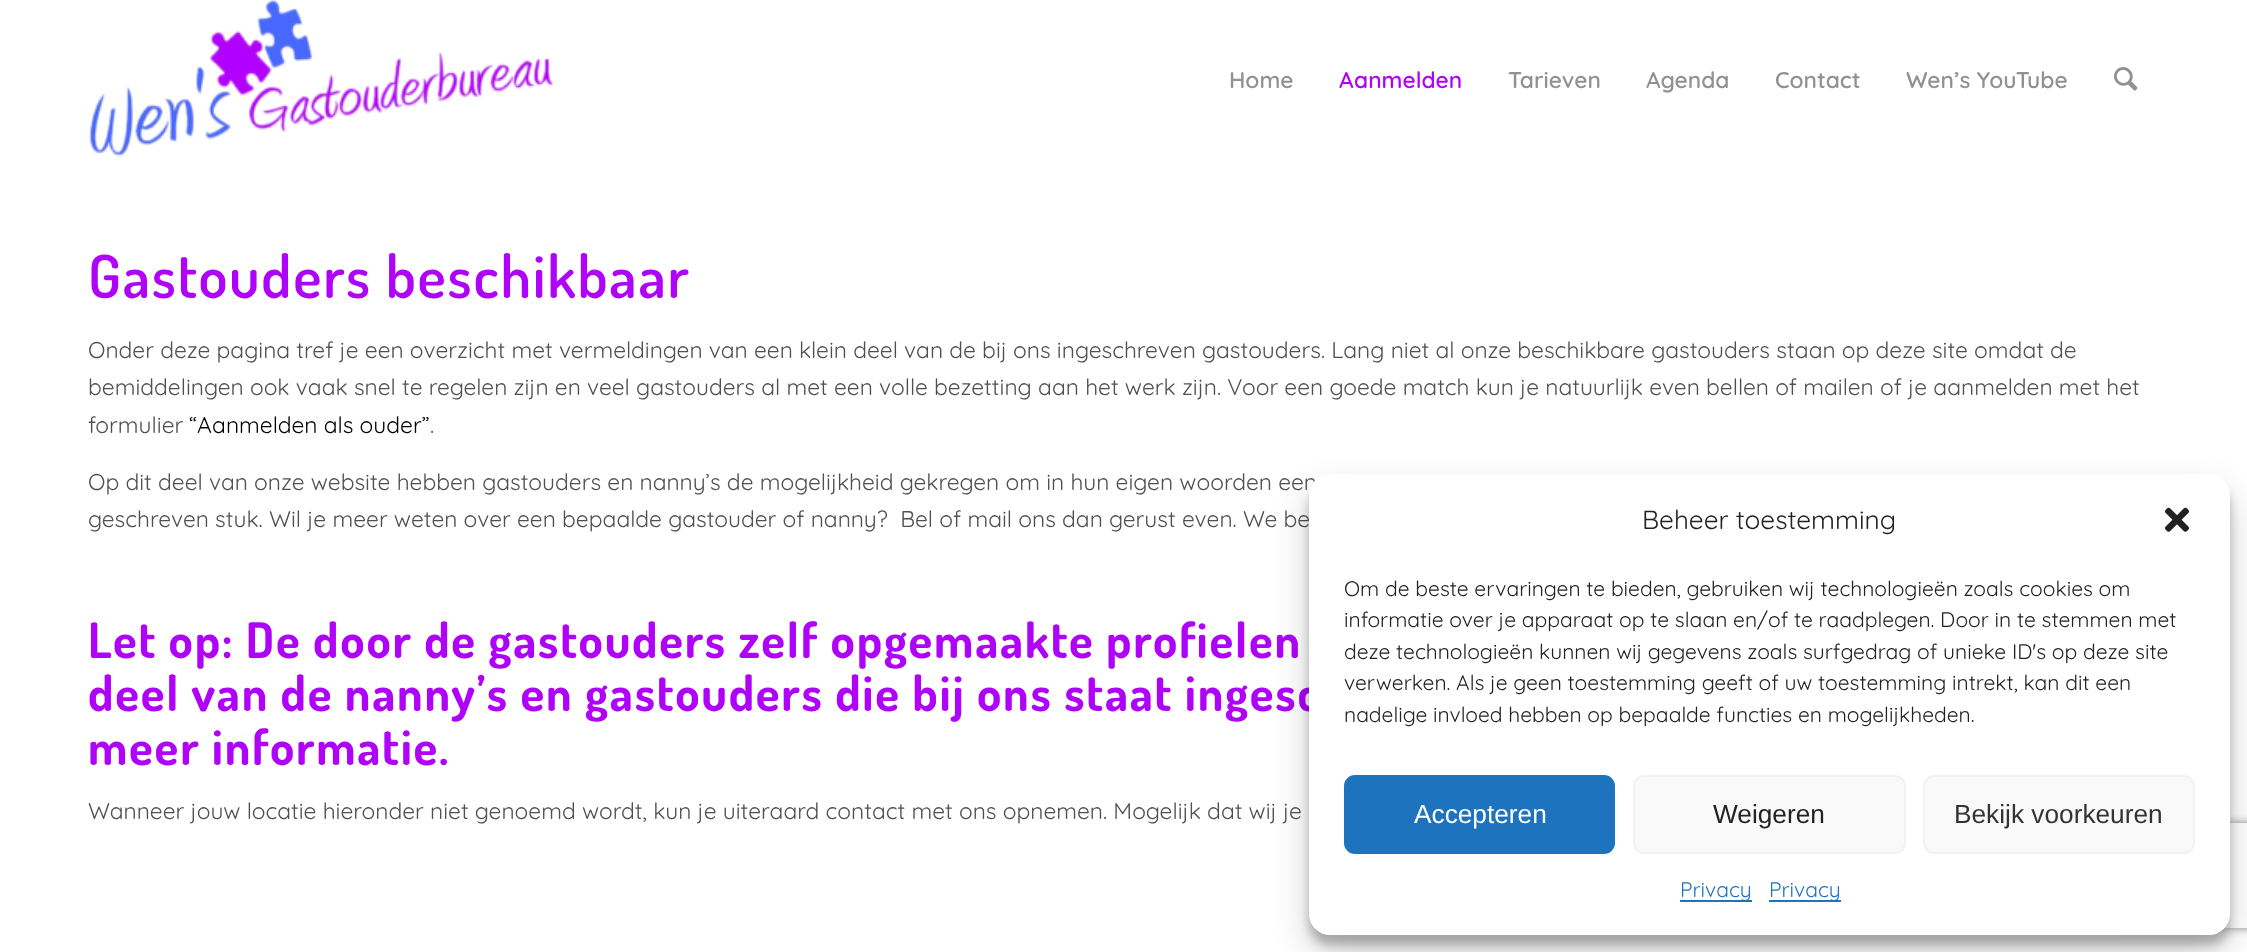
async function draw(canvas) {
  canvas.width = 2247
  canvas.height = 952
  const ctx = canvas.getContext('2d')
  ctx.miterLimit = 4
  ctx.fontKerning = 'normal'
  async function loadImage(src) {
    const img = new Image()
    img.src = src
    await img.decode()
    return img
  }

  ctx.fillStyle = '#fff'
  ctx.fillRect(0, 0, 2247, 952)
  ctx.drawImage(await loadImage('image0.png'), 89, 0, 465, 157)
  ctx.font = '600 22.75px Quicksand'
  ctx.fillStyle = '#919191'
  ctx.fillText('Home', 1229, 88)
  ctx.fillStyle = '#af03f9'
  ctx.fillText('Aanmelden', 1339, 88)
  ctx.fillStyle = '#919191'
  ctx.fillText('Tarieven', 1508, 88)
  ctx.fillText('Agenda', 1646, 88)
  ctx.fillText('Contact', 1775, 88)
  ctx.fillText('Wen’s YouTube', 1906, 88)
  ctx.drawImage(await loadImage('image1.png'), 2114, 67, 24, 24)
  ctx.letterSpacing = '1.75px'
  ctx.font = '600 59.5px Dosis'
  ctx.fillStyle = '#af03f9'
  ctx.fillText('Gastouders beschikbaar', 88, 298)
  ctx.letterSpacing = '0px'
  ctx.font = '22.75px Quicksand'
  ctx.fillStyle = '#524f54'
  ctx.fillText('Onder deze pagina tref je een overzicht met vermeldingen van een klein deel van de bij ons ingeschreven gastouders. Lang niet al onze beschikbare gastouders staan op deze site omdat de', 88, 358)
  ctx.fillText('bemiddelingen ook vaak snel te regelen zijn en veel gastouders al met een volle bezetting aan het werk zijn. Voor een goede match kun je natuurlijk even bellen of mailen of je aanmelden met het', 88, 395)
  ctx.fillText('formulier', 88, 433)
  ctx.fillStyle = '#000'
  ctx.fillText('“Aanmelden als ouder”', 189, 433)
  ctx.fillStyle = '#524f54'
  ctx.fillText('.', 430, 433)
  ctx.fillText('Op dit deel van onze website hebben gastouders en nanny’s de mogelijkheid gekregen om in hun eigen woorden een', 88, 490)
  ctx.fillText('geschreven stuk. Wil je meer weten over een bepaalde gastouder of nanny?  Bel of mail ons dan gerust even. We be', 88, 527)
  ctx.letterSpacing = '1.75px'
  ctx.font = 'bold 49px Dosis'
  ctx.fillStyle = '#af03f9'
  ctx.fillText('Let op: De door de gastouders zelf opgemaakte profielen', 88, 658)
  ctx.fillText('deel van de nanny’s en gastouders die bij ons staat ingesc', 88, 711)
  ctx.fillText('meer informatie.', 88, 765)
  ctx.letterSpacing = '0px'
  ctx.font = '22.75px Quicksand'
  ctx.fillStyle = '#524f54'
  ctx.fillText('Wanneer jouw locatie hieronder niet genoemd wordt, kun je uiteraard contact met ons opnemen. Mogelijk dat wij je', 88, 819)
  ctx.fillStyle = '#0000003b'
  ctx.filter = 'blur(5px)'
  ctx.beginPath()
  ctx.roundRect(1309, 485, 921, 460, 21)
  ctx.fill()
  ctx.filter = 'none'
  ctx.fillStyle = '#00000030'
  ctx.filter = 'blur(17.5px)'
  ctx.beginPath()
  ctx.roundRect(1309, 492, 921, 460, 21)
  ctx.fill()
  ctx.filter = 'none'
  ctx.save()
  ctx.beginPath()
  ctx.moveTo(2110, 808)
  ctx.lineTo(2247, 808)
  ctx.lineTo(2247, 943)
  ctx.lineTo(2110, 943)
  ctx.closePath()
  ctx.moveTo(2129, 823)
  ctx.lineTo(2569, 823)
  ctx.bezierCurveTo(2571, 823, 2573, 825, 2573, 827)
  ctx.lineTo(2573, 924)
  ctx.bezierCurveTo(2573, 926, 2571, 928, 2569, 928)
  ctx.lineTo(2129, 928)
  ctx.bezierCurveTo(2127, 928, 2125, 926, 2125, 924)
  ctx.lineTo(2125, 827)
  ctx.bezierCurveTo(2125, 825, 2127, 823, 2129, 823)
  ctx.closePath()
  ctx.clip('evenodd')
  ctx.fillStyle = '#808080'
  ctx.filter = 'blur(4.5px)'
  ctx.beginPath()
  ctx.roundRect(2125, 823, 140, 105, 4)
  ctx.fill()
  ctx.filter = 'none'
  ctx.restore()
  ctx.fillStyle = '#fff'
  ctx.beginPath()
  ctx.roundRect(1309, 474, 921, 461, 21)
  ctx.fill()
  ctx.font = '26.25px Quicksand'
  ctx.fillStyle = '#222'
  ctx.fillText('Beheer toestemming', 1642, 529)
  ctx.drawImage(await loadImage('image2.png'), 2165, 507, 24, 25)
  ctx.font = '21px Quicksand'
  ctx.fillText('Om de beste ervaringen te bieden, gebruiken wij technologieën zoals cookies om', 1344, 596)
  ctx.fillText('informatie over je apparaat op te slaan en/of te raadplegen. Door in te stemmen met', 1344, 627)
  ctx.fillText('deze technologieën kunnen wij gegevens zoals surfgedrag of unieke ID\'s op deze site', 1344, 659)
  ctx.fillText('verwerken. Als je geen toestemming geeft of uw toestemming intrekt, kan dit een', 1344, 690)
  ctx.fillText('nadelige invloed hebben op bepaalde functies en mogelijkheden.', 1344, 722)
  ctx.fillStyle = '#1e73be'
  ctx.beginPath()
  ctx.roundRect(1345, 776, 269, 77, 10)
  ctx.fill()
  ctx.strokeStyle = '#1e73be'
  ctx.lineWidth = 2
  ctx.stroke()
  ctx.font = '26.25px Liberation Sans'
  ctx.fillStyle = '#fff'
  ctx.fillText('Accepteren', 1414, 823)
  ctx.fillStyle = '#f9f9f9'
  ctx.beginPath()
  ctx.roundRect(1634, 776, 271, 77, 10)
  ctx.fill()
  ctx.strokeStyle = '#f2f2f2'
  ctx.stroke()
  ctx.fillStyle = '#222'
  ctx.fillText('Weigeren', 1713, 823)
  ctx.fillStyle = '#f9f9f9'
  ctx.beginPath()
  ctx.roundRect(1924, 776, 270, 77, 10)
  ctx.fill()
  ctx.stroke()
  ctx.fillStyle = '#333'
  ctx.fillText('Bekijk voorkeuren', 1954, 823)
  ctx.fillStyle = '#1e73be'
  ctx.fillRect(1680, 900, 72, 2)
  ctx.font = '21px Quicksand'
  ctx.fillText('Privacy', 1680, 897)
  ctx.fillRect(1769, 900, 72, 2)
  ctx.fillText('Privacy', 1769, 897)
}

draw(document.querySelector('canvas'))
